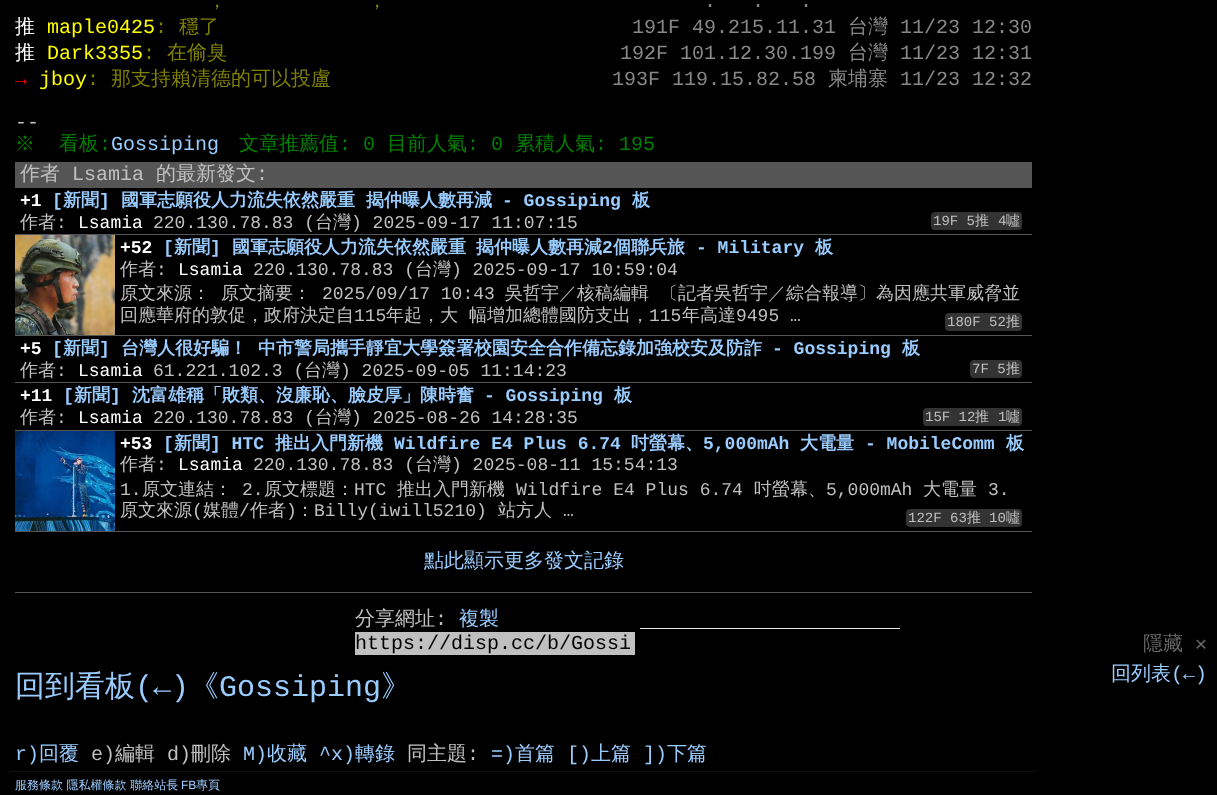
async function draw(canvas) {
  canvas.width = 1217
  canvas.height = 795
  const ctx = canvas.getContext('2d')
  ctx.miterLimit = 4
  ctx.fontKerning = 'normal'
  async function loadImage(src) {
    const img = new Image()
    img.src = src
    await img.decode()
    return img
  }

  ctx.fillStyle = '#000'
  ctx.fillRect(0, 0, 1217, 795)
  ctx.font = '500 20px WenQuanYi Zen Hei'
  ctx.fillStyle = '#808000'
  ctx.fillText('，', 207, 7)
  ctx.fillText('，', 367, 7)
  ctx.font = '20px Liberation Mono'
  ctx.fillStyle = '#888'
  ctx.fillText('.', 704, 7)
  ctx.fillText('.', 752, 7)
  ctx.fillText('.', 800, 7)
  ctx.font = '500 20px WenQuanYi Zen Hei'
  ctx.fillStyle = '#fff'
  ctx.fillText('推', 15, 33)
  ctx.font = '20px Liberation Mono'
  ctx.fillStyle = '#ff0'
  ctx.fillText('maple0425', 47, 33)
  ctx.fillStyle = '#808000'
  ctx.fillText(':', 155, 33)
  ctx.font = '500 20px WenQuanYi Zen Hei'
  ctx.fillText('穩了', 179, 33)
  ctx.font = '20px Liberation Mono'
  ctx.fillStyle = '#888'
  ctx.fillText('191F 49.215.11.31', 632, 33)
  ctx.font = '500 20px WenQuanYi Zen Hei'
  ctx.fillText('台灣', 848, 33)
  ctx.font = '20px Liberation Mono'
  ctx.fillText('11/23 12:30', 900, 33)
  ctx.font = '500 20px WenQuanYi Zen Hei'
  ctx.fillStyle = '#fff'
  ctx.fillText('推', 15, 59)
  ctx.font = '20px Liberation Mono'
  ctx.fillStyle = '#ff0'
  ctx.fillText('Dark3355', 47, 59)
  ctx.fillStyle = '#808000'
  ctx.fillText(':', 143, 59)
  ctx.font = '500 20px WenQuanYi Zen Hei'
  ctx.fillText('在偷臭', 167, 59)
  ctx.font = '20px Liberation Mono'
  ctx.fillStyle = '#888'
  ctx.fillText('192F 101.12.30.199', 620, 59)
  ctx.font = '500 20px WenQuanYi Zen Hei'
  ctx.fillText('台灣', 848, 59)
  ctx.font = '20px Liberation Mono'
  ctx.fillText('11/23 12:31', 900, 59)
  ctx.fillStyle = '#f00'
  ctx.fillText('→', 15, 85)
  ctx.fillStyle = '#ff0'
  ctx.fillText('jboy', 39, 85)
  ctx.fillStyle = '#808000'
  ctx.fillText(':', 87, 85)
  ctx.font = '500 20px WenQuanYi Zen Hei'
  ctx.fillText('那支持賴清德的可以投盧', 111, 85)
  ctx.font = '20px Liberation Mono'
  ctx.fillStyle = '#888'
  ctx.fillText('193F 119.15.82.58', 612, 85)
  ctx.font = '500 20px WenQuanYi Zen Hei'
  ctx.fillText('柬埔寨', 828, 85)
  ctx.font = '20px Liberation Mono'
  ctx.fillText('11/23 12:32', 900, 85)
  ctx.fillStyle = '#c0c0c0'
  ctx.fillText('--', 15, 128)
  ctx.font = '500 20px WenQuanYi Zen Hei'
  ctx.fillStyle = '#008000'
  ctx.fillText('※', 15, 150)
  ctx.fillText('看板', 59, 150)
  ctx.font = '20px Liberation Mono'
  ctx.fillText(':', 99, 150)
  ctx.fillStyle = '#9cf'
  ctx.fillText('Gossiping', 111, 150)
  ctx.font = '500 20px WenQuanYi Zen Hei'
  ctx.fillStyle = '#008000'
  ctx.fillText('文章推薦值', 239, 150)
  ctx.font = '20px Liberation Mono'
  ctx.fillText(': 0', 339, 150)
  ctx.font = '500 20px WenQuanYi Zen Hei'
  ctx.fillText('目前人氣', 387, 150)
  ctx.font = '20px Liberation Mono'
  ctx.fillText(': 0', 467, 150)
  ctx.font = '500 20px WenQuanYi Zen Hei'
  ctx.fillText('累積人氣', 515, 150)
  ctx.font = '20px Liberation Mono'
  ctx.fillText(': 195', 595, 150)
  ctx.fillStyle = '#555'
  ctx.fillRect(15, 162, 1017, 26)
  ctx.font = '500 20px WenQuanYi Zen Hei'
  ctx.fillStyle = '#c0c0c0'
  ctx.fillText('作者', 20, 180)
  ctx.font = '20px Liberation Mono'
  ctx.fillText('Lsamia', 72, 180)
  ctx.font = '500 20px WenQuanYi Zen Hei'
  ctx.fillText('的最新發文', 156, 180)
  ctx.font = '20px Liberation Mono'
  ctx.fillText(':', 256, 180)
  ctx.fillStyle = '#555'
  ctx.fillRect(15, 234, 1017, 1)
  ctx.font = 'bold 18px Liberation Mono'
  ctx.fillStyle = '#fff'
  ctx.fillText('+1', 20, 206)
  ctx.fillStyle = '#9cf'
  ctx.fillText('[', 52, 206)
  ctx.font = 'bold 18px WenQuanYi Zen Hei'
  ctx.fillText('新聞', 63, 206)
  ctx.font = 'bold 18px Liberation Mono'
  ctx.fillText(']', 99, 206)
  ctx.font = 'bold 18px WenQuanYi Zen Hei'
  ctx.fillText('國軍志願役人力流失依然嚴重', 121, 206)
  ctx.fillText('揭仲曝人數再減', 366, 206)
  ctx.font = 'bold 18px Liberation Mono'
  ctx.fillText('- Gossiping', 502, 206)
  ctx.font = 'bold 18px WenQuanYi Zen Hei'
  ctx.fillText('板', 632, 206)
  ctx.font = '500 18px WenQuanYi Zen Hei'
  ctx.fillStyle = '#c0c0c0'
  ctx.fillText('作者', 20, 228)
  ctx.font = '18px Liberation Mono'
  ctx.fillText(':', 56, 228)
  ctx.fillStyle = '#fff'
  ctx.fillText('Lsamia', 78, 228)
  ctx.fillStyle = '#c0c0c0'
  ctx.fillText('220.130.78.83 (', 153, 228)
  ctx.font = '500 18px WenQuanYi Zen Hei'
  ctx.fillText('台灣', 315, 228)
  ctx.font = '18px Liberation Mono'
  ctx.fillText(') 2025-09-17 11:07:15', 351, 228)
  ctx.fillStyle = '#333'
  ctx.beginPath()
  ctx.roundRect(931, 212, 91, 18, 4)
  ctx.fill()
  ctx.font = '14px Liberation Mono'
  ctx.fillStyle = '#c0c0c0'
  ctx.fillText('19F 5', 933, 225)
  ctx.font = '500 14px WenQuanYi Zen Hei'
  ctx.fillText('推', 975, 225)
  ctx.font = '14px Liberation Mono'
  ctx.fillText('4', 998, 225)
  ctx.font = '500 14px WenQuanYi Zen Hei'
  ctx.fillText('噓', 1006, 225)
  ctx.fillStyle = '#555'
  ctx.fillRect(15, 335, 1017, 1)
  ctx.drawImage(await loadImage('image0.png'), 15, 235, 100, 100)
  ctx.font = 'bold 18px Liberation Mono'
  ctx.fillStyle = '#fff'
  ctx.fillText('+52', 120, 253)
  ctx.fillStyle = '#9cf'
  ctx.fillText('[', 163, 253)
  ctx.font = 'bold 18px WenQuanYi Zen Hei'
  ctx.fillText('新聞', 174, 253)
  ctx.font = 'bold 18px Liberation Mono'
  ctx.fillText(']', 210, 253)
  ctx.font = 'bold 18px WenQuanYi Zen Hei'
  ctx.fillText('國軍志願役人力流失依然嚴重', 232, 253)
  ctx.fillText('揭仲曝人數再減', 476, 253)
  ctx.font = 'bold 18px Liberation Mono'
  ctx.fillText('2', 602, 253)
  ctx.font = 'bold 18px WenQuanYi Zen Hei'
  ctx.fillText('個聯兵旅', 613, 253)
  ctx.font = 'bold 18px Liberation Mono'
  ctx.fillText('- Military', 696, 253)
  ctx.font = 'bold 18px WenQuanYi Zen Hei'
  ctx.fillText('板', 815, 253)
  ctx.font = '500 18px WenQuanYi Zen Hei'
  ctx.fillStyle = '#c0c0c0'
  ctx.fillText('作者', 120, 275)
  ctx.font = '18px Liberation Mono'
  ctx.fillText(':', 156, 275)
  ctx.fillStyle = '#fff'
  ctx.fillText('Lsamia', 178, 275)
  ctx.fillStyle = '#c0c0c0'
  ctx.fillText('220.130.78.83 (', 253, 275)
  ctx.font = '500 18px WenQuanYi Zen Hei'
  ctx.fillText('台灣', 415, 275)
  ctx.font = '18px Liberation Mono'
  ctx.fillText(') 2025-09-17 10:59:04', 451, 275)
  ctx.font = '500 18px WenQuanYi Zen Hei'
  ctx.fillText('原文來源：', 120, 299)
  ctx.fillText('原文摘要：', 221, 299)
  ctx.font = '18px Liberation Mono'
  ctx.fillText('2025/09/17 10:43', 322, 299)
  ctx.font = '500 18px WenQuanYi Zen Hei'
  ctx.fillText('吳哲宇／核稿編輯', 505, 299)
  ctx.fillText('〔記者吳哲宇／綜合報導〕為因應共軍威脅並', 660, 299)
  ctx.fillText('回應華府的敦促，政府決定自', 120, 321)
  ctx.font = '18px Liberation Mono'
  ctx.fillText('115', 354, 321)
  ctx.font = '500 18px WenQuanYi Zen Hei'
  ctx.fillText('年起，大', 386, 321)
  ctx.fillText('幅增加總體國防支出，', 469, 321)
  ctx.font = '18px Liberation Mono'
  ctx.fillText('115', 649, 321)
  ctx.font = '500 18px WenQuanYi Zen Hei'
  ctx.fillText('年高達', 682, 321)
  ctx.font = '18px Liberation Mono'
  ctx.fillText('9495 …', 736, 321)
  ctx.fillStyle = '#333'
  ctx.beginPath()
  ctx.roundRect(945, 313, 77, 18, 4)
  ctx.fill()
  ctx.font = '14px Liberation Mono'
  ctx.fillStyle = '#c0c0c0'
  ctx.fillText('180F 52', 947, 326)
  ctx.font = '500 14px WenQuanYi Zen Hei'
  ctx.fillText('推', 1006, 326)
  ctx.fillStyle = '#555'
  ctx.fillRect(15, 382, 1017, 1)
  ctx.font = 'bold 18px Liberation Mono'
  ctx.fillStyle = '#fff'
  ctx.fillText('+5', 20, 354)
  ctx.fillStyle = '#9cf'
  ctx.fillText('[', 52, 354)
  ctx.font = 'bold 18px WenQuanYi Zen Hei'
  ctx.fillText('新聞', 63, 354)
  ctx.font = 'bold 18px Liberation Mono'
  ctx.fillText(']', 99, 354)
  ctx.font = 'bold 18px WenQuanYi Zen Hei'
  ctx.fillText('台灣人很好騙！', 121, 354)
  ctx.fillText('中市警局攜手靜宜大學簽署校園安全合作備忘錄加強校安及防詐', 258, 354)
  ctx.font = 'bold 18px Liberation Mono'
  ctx.fillText('- Gossiping', 772, 354)
  ctx.font = 'bold 18px WenQuanYi Zen Hei'
  ctx.fillText('板', 902, 354)
  ctx.font = '500 18px WenQuanYi Zen Hei'
  ctx.fillStyle = '#c0c0c0'
  ctx.fillText('作者', 20, 376)
  ctx.font = '18px Liberation Mono'
  ctx.fillText(':', 56, 376)
  ctx.fillStyle = '#fff'
  ctx.fillText('Lsamia', 78, 376)
  ctx.fillStyle = '#c0c0c0'
  ctx.fillText('61.221.102.3 (', 153, 376)
  ctx.font = '500 18px WenQuanYi Zen Hei'
  ctx.fillText('台灣', 304, 376)
  ctx.font = '18px Liberation Mono'
  ctx.fillText(') 2025-09-05 11:14:23', 340, 376)
  ctx.fillStyle = '#333'
  ctx.beginPath()
  ctx.roundRect(970, 360, 52, 18, 4)
  ctx.fill()
  ctx.font = '14px Liberation Mono'
  ctx.fillStyle = '#c0c0c0'
  ctx.fillText('7F 5', 972, 373)
  ctx.font = '500 14px WenQuanYi Zen Hei'
  ctx.fillText('推', 1006, 373)
  ctx.fillStyle = '#555'
  ctx.fillRect(15, 430, 1017, 1)
  ctx.font = 'bold 18px Liberation Mono'
  ctx.fillStyle = '#fff'
  ctx.fillText('+11', 20, 401)
  ctx.fillStyle = '#9cf'
  ctx.fillText('[', 63, 401)
  ctx.font = 'bold 18px WenQuanYi Zen Hei'
  ctx.fillText('新聞', 74, 401)
  ctx.font = 'bold 18px Liberation Mono'
  ctx.fillText(']', 110, 401)
  ctx.font = 'bold 18px WenQuanYi Zen Hei'
  ctx.fillText('沈富雄稱「敗類、沒廉恥、臉皮厚」陳時奮', 132, 401)
  ctx.font = 'bold 18px Liberation Mono'
  ctx.fillText('- Gossiping', 484, 401)
  ctx.font = 'bold 18px WenQuanYi Zen Hei'
  ctx.fillText('板', 614, 401)
  ctx.font = '500 18px WenQuanYi Zen Hei'
  ctx.fillStyle = '#c0c0c0'
  ctx.fillText('作者', 20, 423)
  ctx.font = '18px Liberation Mono'
  ctx.fillText(':', 56, 423)
  ctx.fillStyle = '#fff'
  ctx.fillText('Lsamia', 78, 423)
  ctx.fillStyle = '#c0c0c0'
  ctx.fillText('220.130.78.83 (', 153, 423)
  ctx.font = '500 18px WenQuanYi Zen Hei'
  ctx.fillText('台灣', 315, 423)
  ctx.font = '18px Liberation Mono'
  ctx.fillText(') 2025-08-26 14:28:35', 351, 423)
  ctx.fillStyle = '#333'
  ctx.beginPath()
  ctx.roundRect(923, 408, 99, 18, 4)
  ctx.fill()
  ctx.font = '14px Liberation Mono'
  ctx.fillStyle = '#c0c0c0'
  ctx.fillText('15F 12', 925, 421)
  ctx.font = '500 14px WenQuanYi Zen Hei'
  ctx.fillText('推', 975, 421)
  ctx.font = '14px Liberation Mono'
  ctx.fillText('1', 998, 421)
  ctx.font = '500 14px WenQuanYi Zen Hei'
  ctx.fillText('噓', 1006, 421)
  ctx.fillStyle = '#555'
  ctx.fillRect(15, 531, 1017, 1)
  ctx.drawImage(await loadImage('image1.png'), 15, 431, 100, 100)
  ctx.font = 'bold 18px Liberation Mono'
  ctx.fillStyle = '#fff'
  ctx.fillText('+53', 120, 449)
  ctx.fillStyle = '#9cf'
  ctx.fillText('[', 163, 449)
  ctx.font = 'bold 18px WenQuanYi Zen Hei'
  ctx.fillText('新聞', 174, 449)
  ctx.font = 'bold 18px Liberation Mono'
  ctx.fillText('] HTC', 210, 449)
  ctx.font = 'bold 18px WenQuanYi Zen Hei'
  ctx.fillText('推出入門新機', 275, 449)
  ctx.font = 'bold 18px Liberation Mono'
  ctx.fillText('Wildfire E4 Plus 6.74', 394, 449)
  ctx.font = 'bold 18px WenQuanYi Zen Hei'
  ctx.fillText('吋螢幕、', 631, 449)
  ctx.font = 'bold 18px Liberation Mono'
  ctx.fillText('5,000mAh', 703, 449)
  ctx.font = 'bold 18px WenQuanYi Zen Hei'
  ctx.fillText('大電量', 800, 449)
  ctx.font = 'bold 18px Liberation Mono'
  ctx.fillText('- MobileComm', 865, 449)
  ctx.font = 'bold 18px WenQuanYi Zen Hei'
  ctx.fillText('板', 1006, 449)
  ctx.font = '500 18px WenQuanYi Zen Hei'
  ctx.fillStyle = '#c0c0c0'
  ctx.fillText('作者', 120, 470)
  ctx.font = '18px Liberation Mono'
  ctx.fillText(':', 156, 470)
  ctx.fillStyle = '#fff'
  ctx.fillText('Lsamia', 178, 470)
  ctx.fillStyle = '#c0c0c0'
  ctx.fillText('220.130.78.83 (', 253, 470)
  ctx.font = '500 18px WenQuanYi Zen Hei'
  ctx.fillText('台灣', 415, 470)
  ctx.font = '18px Liberation Mono'
  ctx.fillText(') 2025-08-11 15:54:13', 451, 470)
  ctx.fillText('1.', 120, 495)
  ctx.font = '500 18px WenQuanYi Zen Hei'
  ctx.fillText('原文連結：', 142, 495)
  ctx.font = '18px Liberation Mono'
  ctx.fillText('2.', 242, 495)
  ctx.font = '500 18px WenQuanYi Zen Hei'
  ctx.fillText('原文標題：', 264, 495)
  ctx.font = '18px Liberation Mono'
  ctx.fillText('HTC', 354, 495)
  ctx.font = '500 18px WenQuanYi Zen Hei'
  ctx.fillText('推出入門新機', 397, 495)
  ctx.font = '18px Liberation Mono'
  ctx.fillText('Wildfire E4 Plus 6.74', 516, 495)
  ctx.font = '500 18px WenQuanYi Zen Hei'
  ctx.fillText('吋螢幕、', 754, 495)
  ctx.font = '18px Liberation Mono'
  ctx.fillText('5,000mAh', 826, 495)
  ctx.font = '500 18px WenQuanYi Zen Hei'
  ctx.fillText('大電量', 923, 495)
  ctx.font = '18px Liberation Mono'
  ctx.fillText('3.', 988, 495)
  ctx.font = '500 18px WenQuanYi Zen Hei'
  ctx.fillText('原文來源', 120, 516)
  ctx.font = '18px Liberation Mono'
  ctx.fillText('(', 192, 516)
  ctx.font = '500 18px WenQuanYi Zen Hei'
  ctx.fillText('媒體', 203, 516)
  ctx.font = '18px Liberation Mono'
  ctx.fillText('/', 239, 516)
  ctx.font = '500 18px WenQuanYi Zen Hei'
  ctx.fillText('作者', 250, 516)
  ctx.font = '18px Liberation Mono'
  ctx.fillText(')', 286, 516)
  ctx.font = '500 18px WenQuanYi Zen Hei'
  ctx.fillText('：', 296, 516)
  ctx.font = '18px Liberation Mono'
  ctx.fillText('Billy(iwill5210)', 314, 516)
  ctx.font = '500 18px WenQuanYi Zen Hei'
  ctx.fillText('站方人', 498, 516)
  ctx.font = '18px Liberation Mono'
  ctx.fillText('…', 563, 516)
  ctx.fillStyle = '#333'
  ctx.beginPath()
  ctx.roundRect(906, 509, 116, 18, 4)
  ctx.fill()
  ctx.font = '14px Liberation Mono'
  ctx.fillStyle = '#c0c0c0'
  ctx.fillText('122F 63', 908, 522)
  ctx.font = '500 14px WenQuanYi Zen Hei'
  ctx.fillText('推', 967, 522)
  ctx.font = '14px Liberation Mono'
  ctx.fillText('10', 989, 522)
  ctx.font = '500 14px WenQuanYi Zen Hei'
  ctx.fillText('噓', 1006, 522)
  ctx.fillStyle = '#555'
  ctx.fillRect(15, 592, 1017, 1)
  ctx.font = '500 20px WenQuanYi Zen Hei'
  ctx.fillStyle = '#9cf'
  ctx.fillText('點此顯示更多發文記錄', 424, 567)
  ctx.fillStyle = '#c0c0c0'
  ctx.fillText('分享網址', 355, 625)
  ctx.font = '20px Liberation Mono'
  ctx.fillText(':', 435, 625)
  ctx.font = '500 20px WenQuanYi Zen Hei'
  ctx.fillStyle = '#9cf'
  ctx.fillText('複製', 459, 625)
  ctx.fillStyle = '#c0c0c0'
  ctx.fillRect(355, 632, 280, 23)
  ctx.font = '20px Liberation Mono'
  ctx.fillStyle = '#000'
  ctx.fillText('https://disp.cc/b/Gossi', 355, 649)
  ctx.fillStyle = '#e9eaed'
  ctx.fillRect(640, 628, 260, 1)
  ctx.font = '500 30px WenQuanYi Zen Hei'
  ctx.fillStyle = '#9cf'
  ctx.fillText('回到看板', 15, 696)
  ctx.font = '30px Liberation Mono'
  ctx.fillText('(←)', 135, 696)
  ctx.font = '500 30px WenQuanYi Zen Hei'
  ctx.fillText('《', 189, 696)
  ctx.font = '30px Liberation Mono'
  ctx.fillText('Gossiping', 219, 696)
  ctx.font = '500 30px WenQuanYi Zen Hei'
  ctx.fillText('》', 381, 696)
  ctx.font = '20px Liberation Mono'
  ctx.fillText('r)', 15, 760)
  ctx.font = '500 20px WenQuanYi Zen Hei'
  ctx.fillText('回覆', 39, 760)
  ctx.font = '20px Liberation Mono'
  ctx.fillStyle = '#c0c0c0'
  ctx.fillText('e)', 91, 760)
  ctx.font = '500 20px WenQuanYi Zen Hei'
  ctx.fillText('編輯', 115, 760)
  ctx.font = '20px Liberation Mono'
  ctx.fillText('d)', 167, 760)
  ctx.font = '500 20px WenQuanYi Zen Hei'
  ctx.fillText('刪除', 191, 760)
  ctx.font = '20px Liberation Mono'
  ctx.fillStyle = '#9cf'
  ctx.fillText('M)', 243, 760)
  ctx.font = '500 20px WenQuanYi Zen Hei'
  ctx.fillText('收藏', 267, 760)
  ctx.font = '20px Liberation Mono'
  ctx.fillText('^x)', 319, 760)
  ctx.font = '500 20px WenQuanYi Zen Hei'
  ctx.fillText('轉錄', 355, 760)
  ctx.fillStyle = '#c0c0c0'
  ctx.fillText('同主題', 407, 760)
  ctx.font = '20px Liberation Mono'
  ctx.fillText(':', 467, 760)
  ctx.fillStyle = '#9cf'
  ctx.fillText('=)', 491, 760)
  ctx.font = '500 20px WenQuanYi Zen Hei'
  ctx.fillText('首篇', 515, 760)
  ctx.font = '20px Liberation Mono'
  ctx.fillText('[)', 567, 760)
  ctx.font = '500 20px WenQuanYi Zen Hei'
  ctx.fillText('上篇', 591, 760)
  ctx.font = '20px Liberation Mono'
  ctx.fillText('])', 643, 760)
  ctx.font = '500 20px WenQuanYi Zen Hei'
  ctx.fillText('下篇', 667, 760)
  ctx.fillStyle = '#666'
  ctx.fillText('隱藏', 1143, 650)
  ctx.font = '20px DejaVu Sans Mono'
  ctx.fillText('✕', 1195, 650)
  ctx.font = '500 20px WenQuanYi Zen Hei'
  ctx.fillStyle = '#9cf'
  ctx.fillText('回列表', 1111, 680)
  ctx.font = '20px Liberation Mono'
  ctx.fillText('(←)', 1171, 680)
  ctx.fillStyle = '#111'
  ctx.fillRect(10, 771, 1027, 1)
  ctx.font = '500 12px WenQuanYi Zen Hei'
  ctx.fillStyle = '#9cf'
  ctx.fillText('服務條款 隱私權條款 聯絡站長', 15, 789)
  ctx.font = '12px Liberation Sans'
  ctx.fillText('FB', 181, 789)
  ctx.font = '500 12px WenQuanYi Zen Hei'
  ctx.fillText('專頁', 196, 789)
}

draw(document.querySelector('canvas'))
